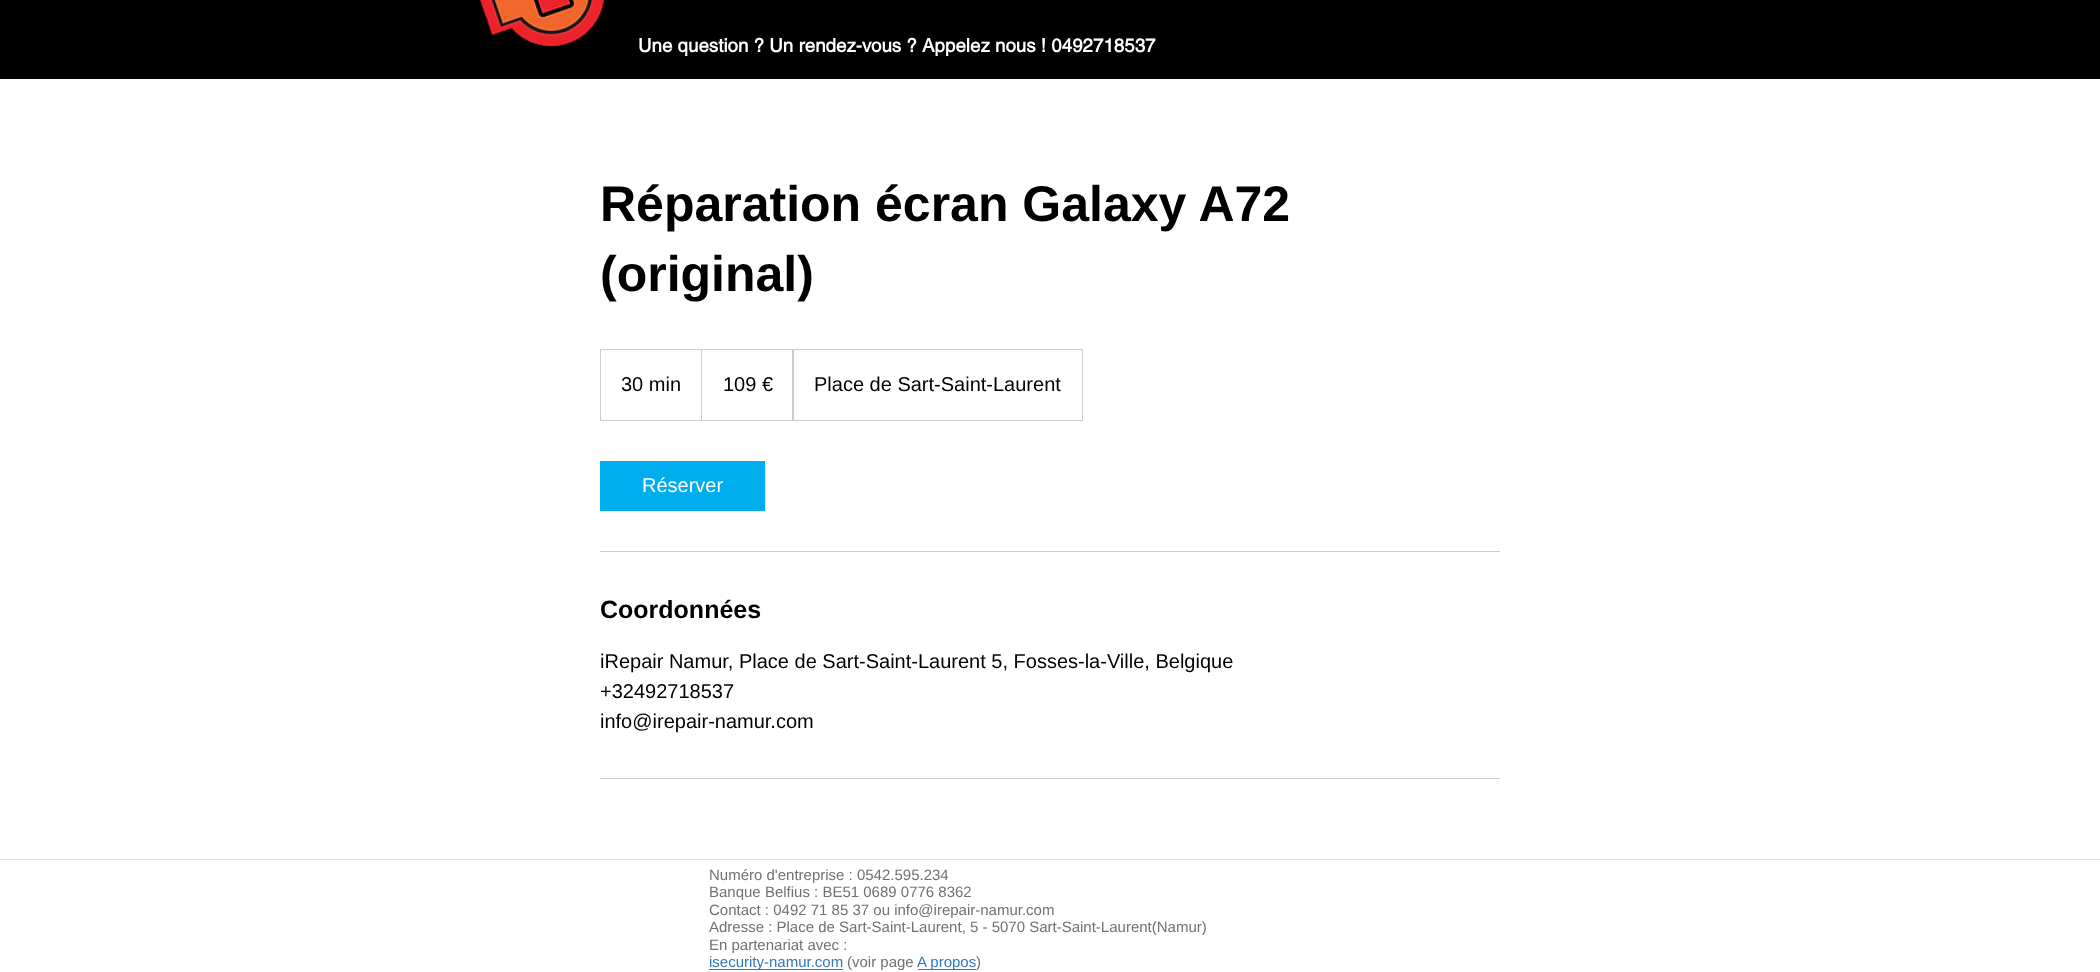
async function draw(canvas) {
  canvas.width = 2100
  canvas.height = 972
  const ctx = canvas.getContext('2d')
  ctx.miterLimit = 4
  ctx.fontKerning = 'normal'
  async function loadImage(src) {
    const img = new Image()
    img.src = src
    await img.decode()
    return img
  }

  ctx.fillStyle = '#fff'
  ctx.fillRect(0, 0, 2100, 972)
  ctx.fillStyle = '#000'
  ctx.fillRect(0, 0, 2100, 79)
  ctx.drawImage(await loadImage('image0.png'), 479, 0, 126, 48)
  ctx.font = 'bold 18.75px helvetica'
  ctx.fillStyle = '#fff'
  ctx.fillText('Une question ? Un rendez-vous ? Appelez nous ! 0492718537', 638, 52)
  ctx.font = 'bold 50px Liberation Sans'
  ctx.fillStyle = '#000'
  ctx.fillText('Réparation écran Galaxy A72', 600, 221)
  ctx.fillText('(original)', 600, 291)
  ctx.strokeStyle = '#ccc'
  ctx.strokeRect(600.5, 349.5, 482, 71)
  ctx.font = '20px Liberation Sans'
  ctx.fillText('30 min', 621, 391)
  ctx.fillStyle = '#ccc'
  ctx.beginPath()
  ctx.moveTo(701, 420)
  ctx.lineTo(701, 349)
  ctx.lineTo(702, 350)
  ctx.lineTo(702, 420)
  ctx.closePath()
  ctx.fill()
  ctx.fillStyle = '#000'
  ctx.fillText('109 €', 723, 391)
  ctx.fillStyle = '#ccc'
  ctx.beginPath()
  ctx.moveTo(792, 420)
  ctx.lineTo(792, 349)
  ctx.lineTo(794, 350)
  ctx.lineTo(794, 420)
  ctx.closePath()
  ctx.fill()
  ctx.fillStyle = '#000'
  ctx.fillText('Place de Sart-Saint-Laurent', 814, 391)
  ctx.fillStyle = '#00aded'
  ctx.fillRect(600, 461, 165, 50)
  ctx.fillStyle = '#fff'
  ctx.fillText('Réserver', 642, 492)
  ctx.fillStyle = '#ccc'
  ctx.fillRect(600, 551, 900, 1)
  ctx.font = 'bold 25px Liberation Sans'
  ctx.fillStyle = '#000'
  ctx.fillText('Coordonnées', 600, 618)
  ctx.font = '20px Liberation Sans'
  ctx.fillText('iRepair Namur, Place de Sart-Saint-Laurent 5, Fosses-la-Ville, Belgique', 600, 668)
  ctx.fillText('+32492718537', 600, 698)
  ctx.fillText('info@irepair-namur.com', 600, 728)
  ctx.fillStyle = '#ccc'
  ctx.fillRect(600, 778, 900, 1)
  ctx.fillStyle = '#e3e3e3'
  ctx.fillRect(0, 859, 2100, 1)
  ctx.font = '15px Liberation Sans'
  ctx.fillStyle = '#757070'
  ctx.fillText('Numéro d\'entreprise : 0542.595.234', 709, 880)
  ctx.fillText('Banque Belfius : BE51 0689 0776 8362', 709, 897)
  ctx.fillText('Contact : 0492 71 85 37 ou info@irepair-namur.com', 709, 915)
  ctx.fillText('Adresse : Place de Sart-Saint-Laurent, 5 - 5070 Sart-Saint-Laurent(Namur)', 709, 932)
  ctx.fillText('En partenariat avec :', 709, 950)
  ctx.fillStyle = '#3078be'
  ctx.fillRect(709, 969, 134, 1)
  ctx.fillText('isecurity-namur.com', 709, 967)
  ctx.fillStyle = '#757070'
  ctx.fillText('(voir page', 847, 967)
  ctx.fillStyle = '#3078be'
  ctx.fillRect(918, 969, 58, 1)
  ctx.fillText('A propos', 917, 967)
  ctx.fillStyle = '#757070'
  ctx.fillText(')', 976, 967)
}

draw(document.querySelector('canvas'))
